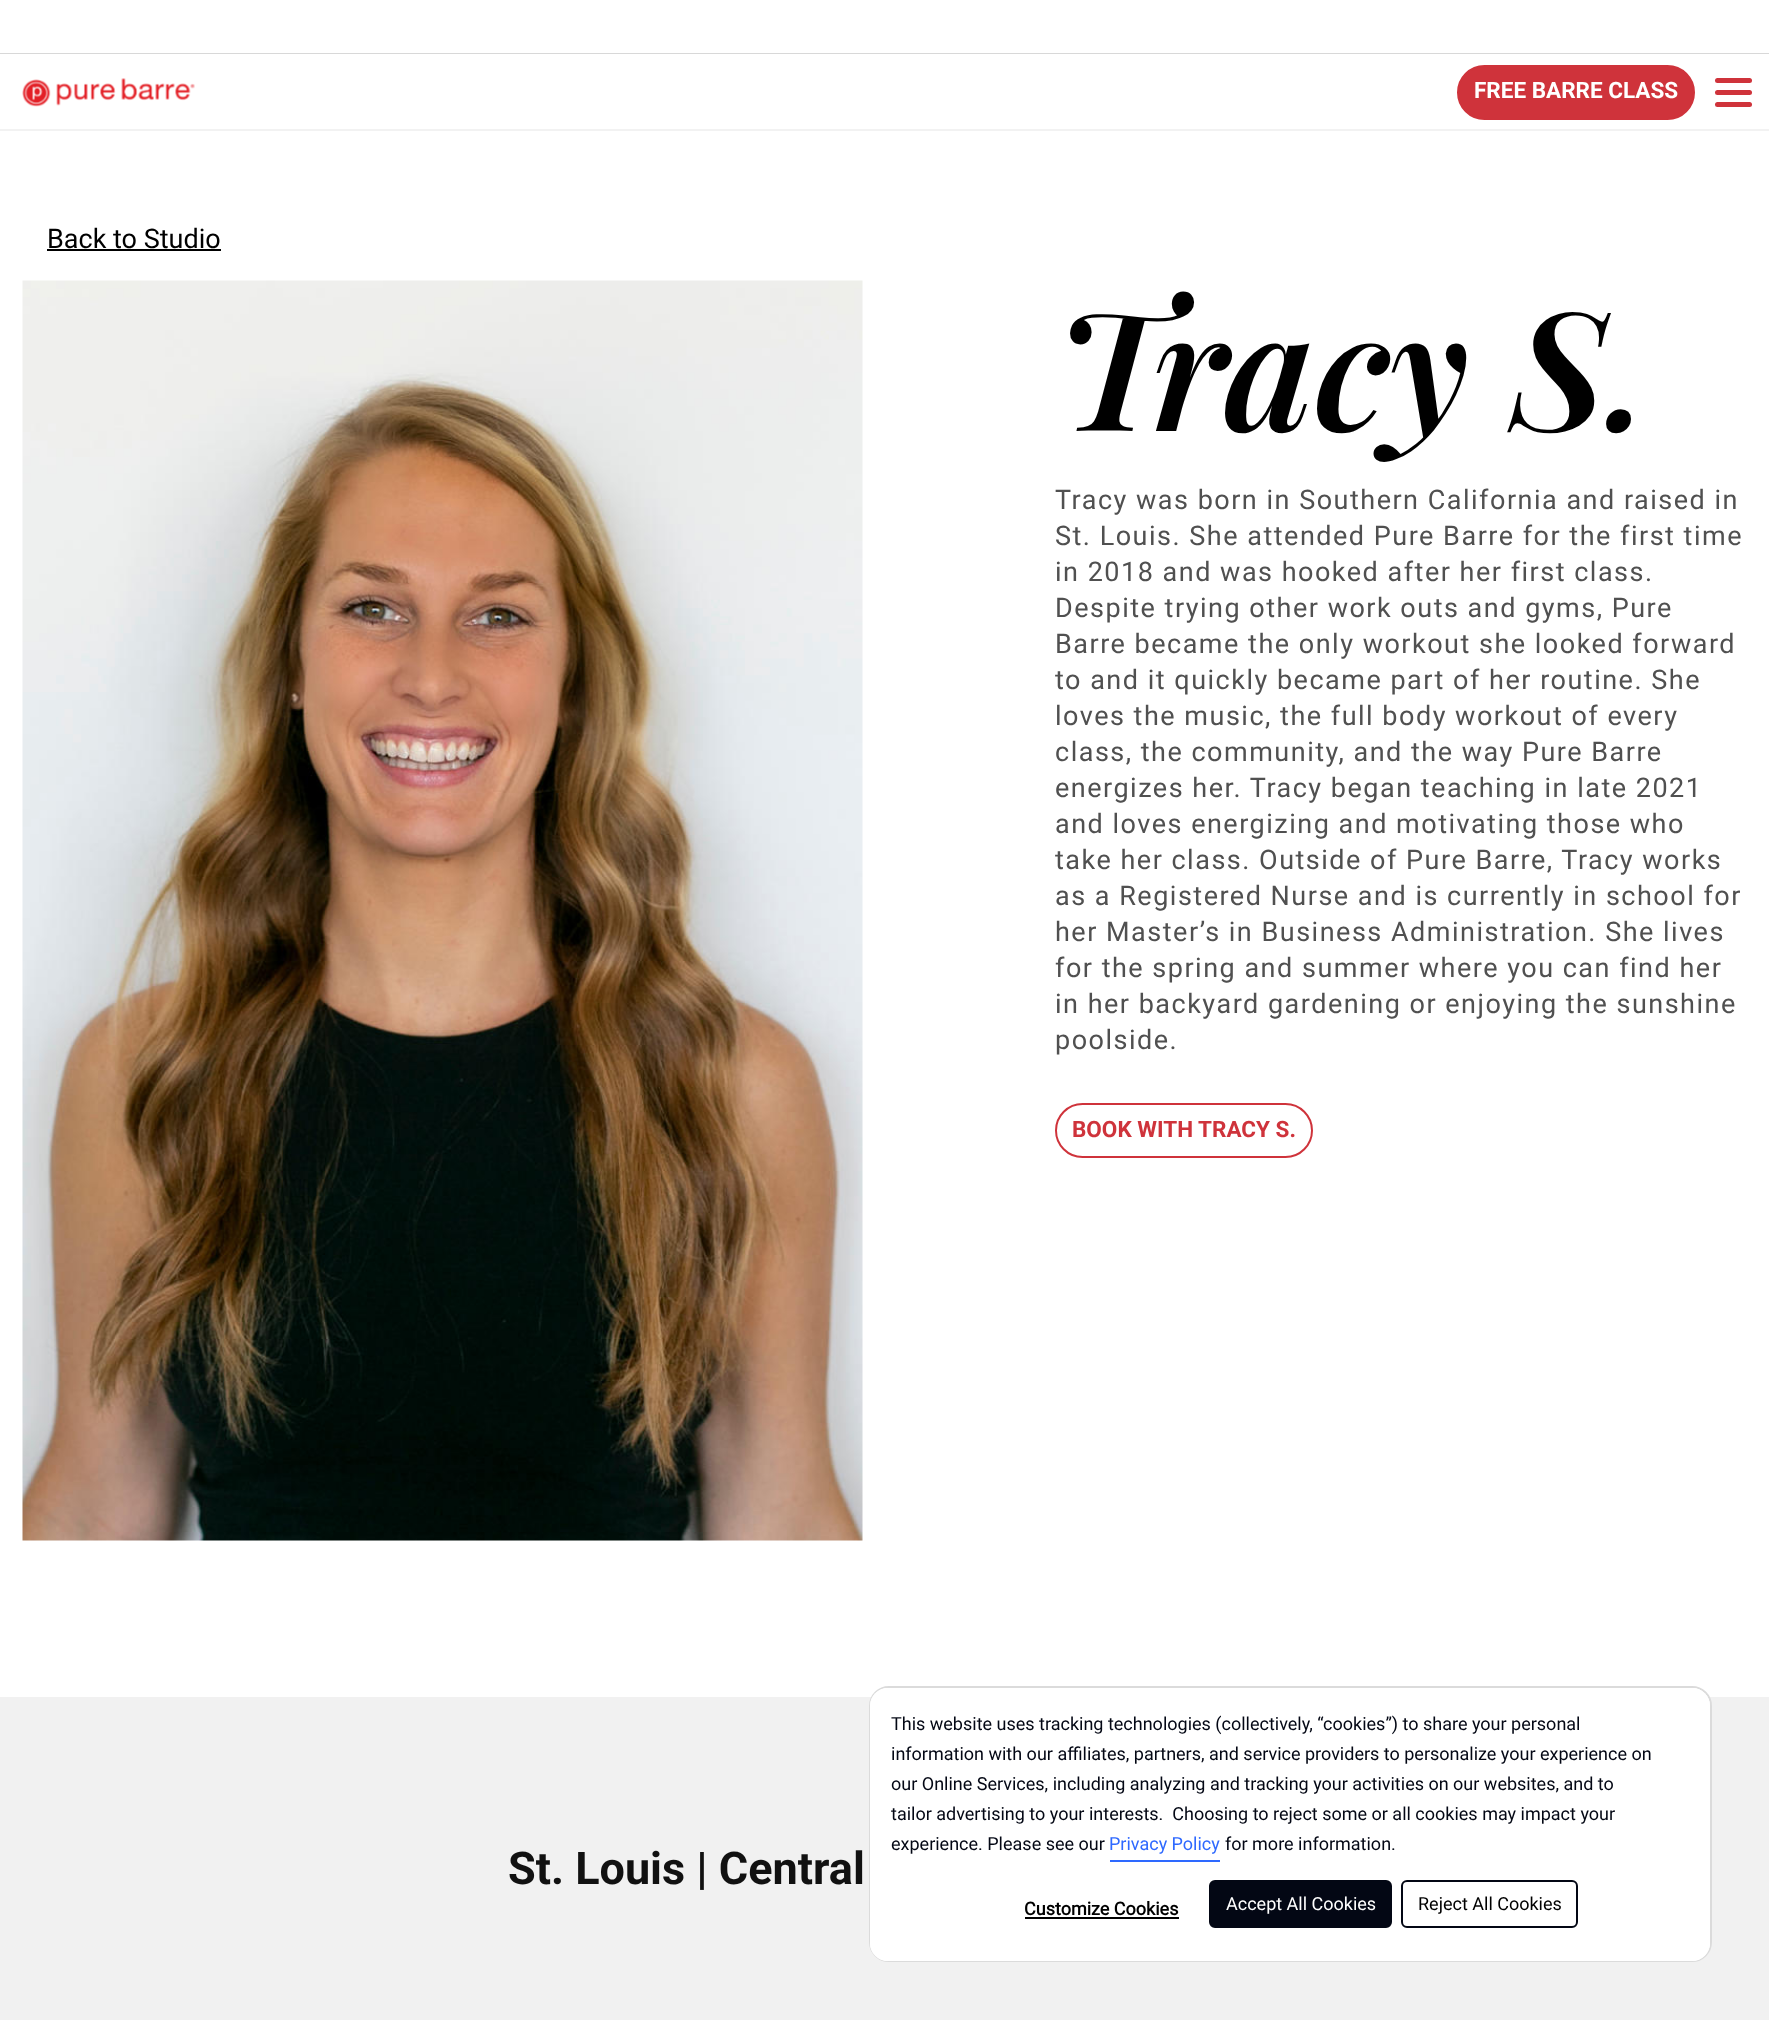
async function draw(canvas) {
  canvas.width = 1769
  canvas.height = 2020
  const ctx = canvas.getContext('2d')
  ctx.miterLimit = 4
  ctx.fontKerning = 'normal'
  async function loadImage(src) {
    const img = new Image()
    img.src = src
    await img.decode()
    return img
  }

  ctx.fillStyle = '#fff'
  ctx.fillRect(0, 0, 1769, 2020)
  ctx.fillStyle = '#d8d8d8'
  ctx.fillRect(0, 53, 1769, 1)
  ctx.fillStyle = '#f2f2f2'
  ctx.fillRect(0, 129, 1769, 2)
  ctx.drawImage(await loadImage('image0.png'), 22, 78, 173, 29)
  ctx.fillStyle = '#cf333b'
  ctx.beginPath()
  ctx.roundRect(1458, 66, 236, 53, 26.5)
  ctx.fill()
  ctx.strokeStyle = '#cf333b'
  ctx.lineWidth = 2
  ctx.stroke()
  ctx.font = 'bold 22.5px Roboto'
  ctx.fillStyle = '#fff'
  ctx.fillText('FREE BARRE CLASS', 1474, 98)
  ctx.fillStyle = '#cf333b'
  ctx.beginPath()
  ctx.roundRect(1715, 78, 37, 5, 2.5)
  ctx.fill()
  ctx.beginPath()
  ctx.roundRect(1715, 90, 37, 5, 2.5)
  ctx.fill()
  ctx.beginPath()
  ctx.roundRect(1715, 102, 37, 5, 2.5)
  ctx.fill()
  ctx.font = '27px Roboto'
  ctx.fillStyle = '#000'
  ctx.fillText('Back to Studio', 47, 248)
  ctx.fillRect(47, 249, 174, 2)
  ctx.drawImage(await loadImage('image1.png'), 22, 280, 841, 1261)
  ctx.font = 'italic 600 165px Playfair Display'
  ctx.fillText('Tracy S.', 1055, 431)
  ctx.letterSpacing = '1.5px'
  ctx.font = '27px Roboto'
  ctx.fillStyle = '#505050'
  ctx.fillText('Tracy was born in Southern California and raised in', 1055, 509)
  ctx.fillText('St. Louis. She attended Pure Barre for the first time', 1055, 545)
  ctx.fillText('in 2018 and was hooked after her first class.', 1055, 581)
  ctx.fillText('Despite trying other work outs and gyms, Pure', 1055, 617)
  ctx.fillText('Barre became the only workout she looked forward', 1055, 653)
  ctx.fillText('to and it quickly became part of her routine. She', 1055, 689)
  ctx.fillText('loves the music, the full body workout of every', 1055, 725)
  ctx.fillText('class, the community, and the way Pure Barre', 1055, 761)
  ctx.fillText('energizes her. Tracy began teaching in late 2021', 1055, 797)
  ctx.fillText('and loves energizing and motivating those who', 1055, 833)
  ctx.fillText('take her class. Outside of Pure Barre, Tracy works', 1055, 869)
  ctx.fillText('as a Registered Nurse and is currently in school for', 1055, 905)
  ctx.fillText('her Master’s in Business Administration. She lives', 1055, 941)
  ctx.fillText('for the spring and summer where you can find her', 1055, 977)
  ctx.fillText('in her backyard gardening or enjoying the sunshine', 1055, 1013)
  ctx.fillText('poolside.', 1055, 1049)
  ctx.beginPath()
  ctx.roundRect(1056, 1104, 256, 53, 26.5)
  ctx.stroke()
  ctx.letterSpacing = '0px'
  ctx.font = 'bold 22.5px Roboto'
  ctx.fillStyle = '#cf333b'
  ctx.fillText('BOOK WITH TRACY S.', 1072, 1137)
  ctx.fillStyle = '#f1f1f1'
  ctx.fillRect(0, 1697, 1769, 323)
  ctx.font = 'bold 45px Roboto'
  ctx.fillStyle = '#111'
  ctx.fillText('St. Louis | Central', 508, 1884)
  ctx.beginPath()
  ctx.roundRect(870, 1687, 841, 274, 19)
  ctx.strokeStyle = '#dbdbdb'
  ctx.stroke()
  ctx.fillStyle = '#fff'
  ctx.beginPath()
  ctx.roundRect(870, 1688, 840, 273, 18)
  ctx.fill()
  ctx.fillStyle = '#ffffffe6'
  ctx.beginPath()
  ctx.roundRect(870, 1688, 840, 273, 18)
  ctx.fill()
  ctx.font = '18px Roboto'
  ctx.fillStyle = '#030714'
  ctx.fillText('This website uses tracking technologies (collectively, “cookies”) to share your personal', 891, 1730)
  ctx.fillText('information with our affiliates, partners, and service providers to personalize your experience on', 891, 1760)
  ctx.fillText('our Online Services, including analyzing and tracking your activities on our websites, and to', 891, 1790)
  ctx.fillText('tailor advertising to your interests.  Choosing to reject some or all cookies may impact your', 891, 1820)
  ctx.fillText('experience. Please see our', 891, 1850)
  ctx.fillStyle = '#2e69ff'
  ctx.fillRect(1110, 1860, 110, 2)
  ctx.fillText('Privacy Policy', 1109, 1850)
  ctx.fillStyle = '#030714'
  ctx.fillText('for more information.', 1225, 1850)
  ctx.font = 'bold 18px "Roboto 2"'
  ctx.fillStyle = '#000'
  ctx.fillText('Customize Cookies', 1024, 1915)
  ctx.fillRect(1025, 1917, 154, 2)
  ctx.fillStyle = '#030714'
  ctx.beginPath()
  ctx.roundRect(1210, 1881, 181, 46, 5)
  ctx.fill()
  ctx.strokeStyle = '#030714'
  ctx.stroke()
  ctx.font = '18px Roboto'
  ctx.fillStyle = '#fff'
  ctx.fillText('Accept All Cookies', 1226, 1910)
  ctx.beginPath()
  ctx.roundRect(1402, 1881, 175, 46, 5)
  ctx.stroke()
  ctx.fillStyle = '#000'
  ctx.fillText('Reject All Cookies', 1418, 1910)
}

draw(document.querySelector('canvas'))
